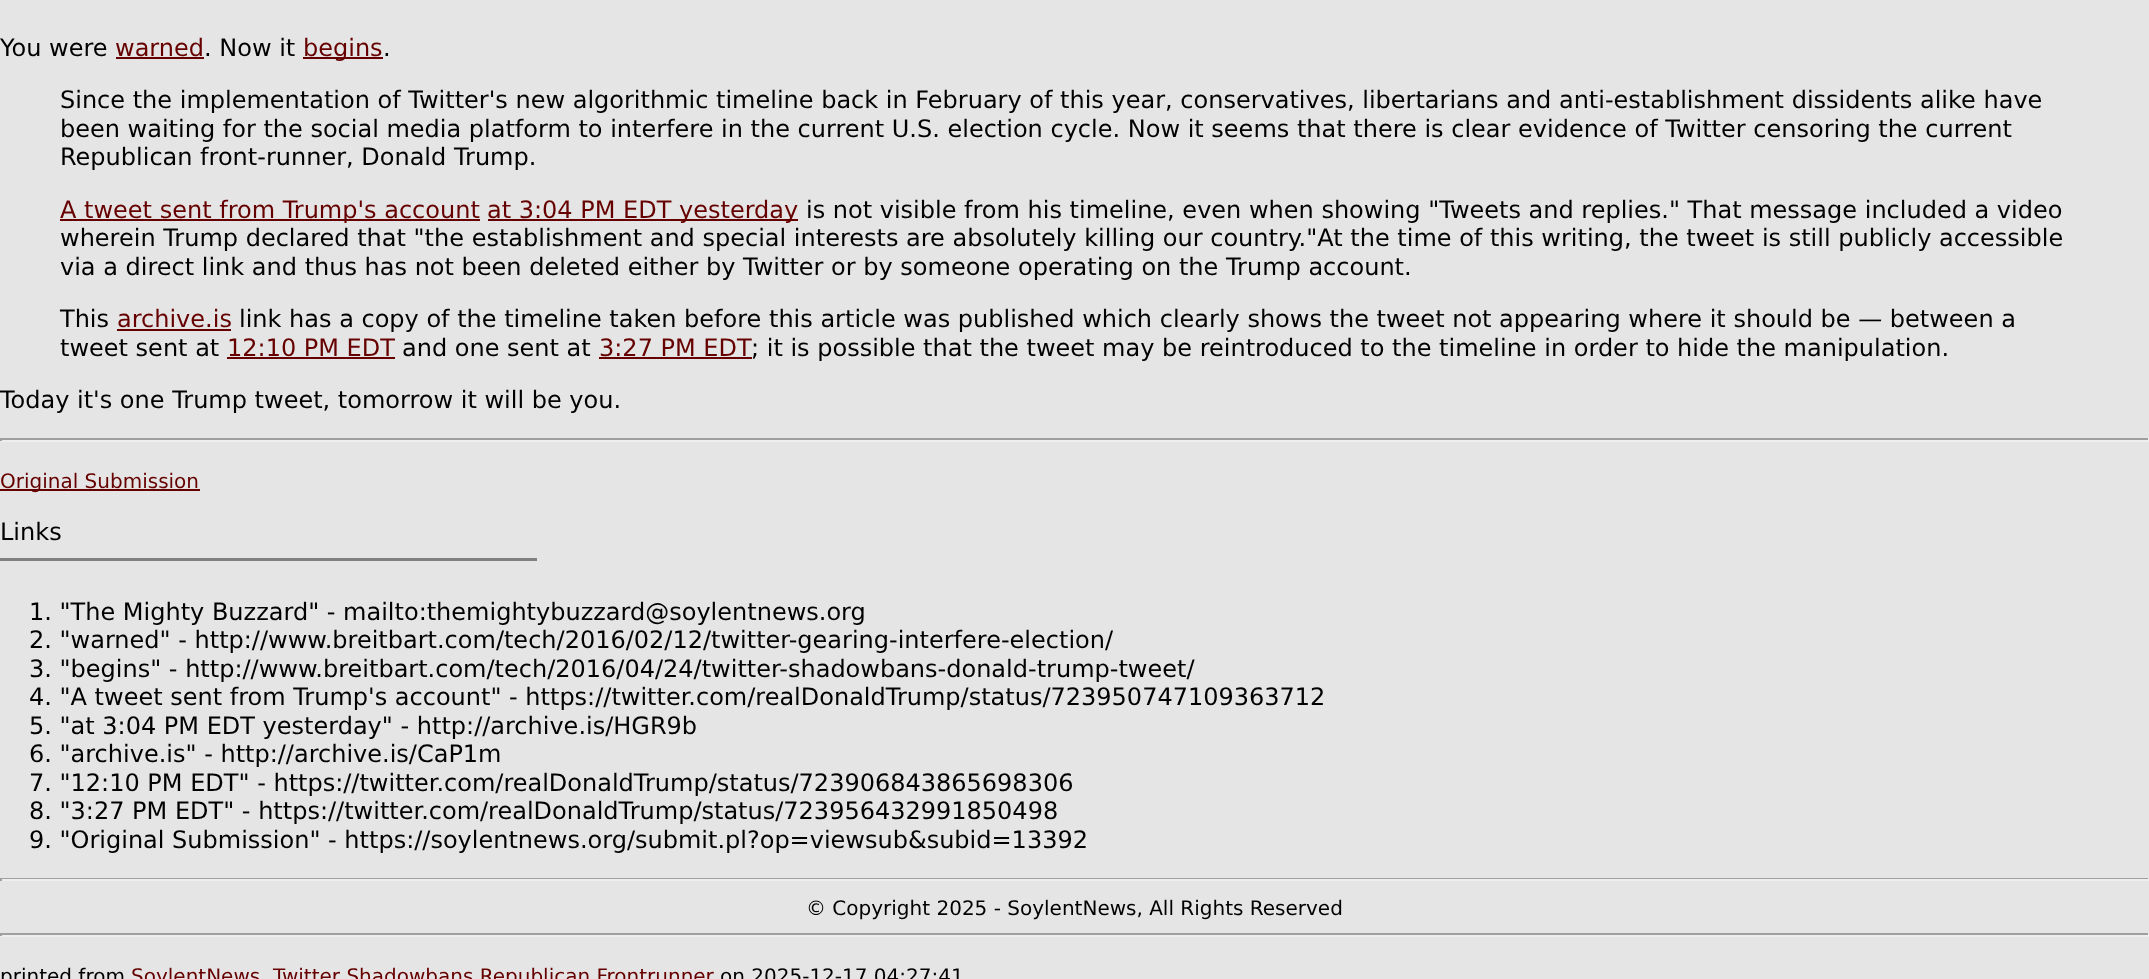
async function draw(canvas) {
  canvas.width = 2149
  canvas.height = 979
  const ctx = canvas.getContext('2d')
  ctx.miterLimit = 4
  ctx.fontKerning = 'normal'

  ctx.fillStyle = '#e5e5e5'
  ctx.fillRect(0, 0, 2149, 979)
  ctx.font = '24px DejaVu Sans'
  ctx.fillStyle = '#000'
  ctx.fillText('You were', 0, 56)
  ctx.fillStyle = '#600'
  ctx.fillText('warned', 115, 56)
  ctx.fillRect(116, 57, 88, 2)
  ctx.fillStyle = '#000'
  ctx.fillText('. Now it', 204, 56)
  ctx.fillStyle = '#600'
  ctx.fillRect(303, 57, 80, 2)
  ctx.fillText('begins', 303, 56)
  ctx.fillStyle = '#000'
  ctx.fillText('.', 383, 56)
  ctx.fillText('Since the implementation of Twitter\'s new algorithmic timeline back in February of this year, conservatives, libertarians and anti-establishment dissidents alike have', 60, 108)
  ctx.fillText('been waiting for the social media platform to interfere in the current U.S. election cycle. Now it seems that there is clear evidence of Twitter censoring the current', 60, 137)
  ctx.fillText('Republican front-runner, Donald Trump.', 60, 165)
  ctx.fillStyle = '#600'
  ctx.fillRect(60, 219, 420, 2)
  ctx.fillText('A tweet sent from Trump\'s account', 60, 218)
  ctx.fillRect(488, 219, 310, 2)
  ctx.fillText('at 3:04 PM EDT yesterday', 487, 218)
  ctx.fillStyle = '#000'
  ctx.fillText('is not visible from his timeline, even when showing "Tweets and replies." That message included a video', 806, 218)
  ctx.fillText('wherein Trump declared that "the establishment and special interests are absolutely killing our country."At the time of this writing, the tweet is still publicly accessible', 60, 246)
  ctx.fillText('via a direct link and thus has not been deleted either by Twitter or by someone operating on the Trump account.', 60, 275)
  ctx.fillText('This', 60, 327)
  ctx.fillStyle = '#600'
  ctx.fillText('archive.is', 117, 327)
  ctx.fillRect(117, 329, 114, 2)
  ctx.fillStyle = '#000'
  ctx.fillText('link has a copy of the timeline taken before this article was published which clearly shows the tweet not appearing where it should be — between a', 239, 327)
  ctx.fillText('tweet sent at', 60, 356)
  ctx.fillStyle = '#600'
  ctx.fillText('12:10 PM EDT', 227, 356)
  ctx.fillRect(227, 357, 168, 2)
  ctx.fillStyle = '#000'
  ctx.fillText('and one sent at', 402, 356)
  ctx.fillStyle = '#600'
  ctx.fillText('3:27 PM EDT', 599, 356)
  ctx.fillRect(599, 357, 153, 2)
  ctx.fillStyle = '#000'
  ctx.fillText('; it is possible that the tweet may be reintroduced to the timeline in order to hide the manipulation.', 751, 356)
  ctx.fillText('Today it\'s one Trump tweet, tomorrow it will be you.', 0, 408)
  ctx.fillStyle = '#9f9f9f'
  ctx.fillRect(0, 438, 2149, 2)
  ctx.fillStyle = '#eee'
  ctx.fillRect(2148, 438, 1, 3)
  ctx.fillRect(0, 440, 2149, 2)
  ctx.fillStyle = '#9f9f9f'
  ctx.fillRect(0, 438, 2, 3)
  ctx.fillStyle = '#600'
  ctx.fillRect(0, 489, 200, 2)
  ctx.font = '20px DejaVu Sans'
  ctx.fillText('Original Submission', 0, 488)
  ctx.font = '24px DejaVu Sans'
  ctx.fillStyle = '#000'
  ctx.fillText('Links', 0, 540)
  ctx.fillStyle = '#808080'
  ctx.fillRect(0, 558, 537, 3)
  ctx.fillStyle = '#000'
  ctx.fillText('1. "The Mighty Buzzard" - mailto:themightybuzzard@soylentnews.org', 29, 620)
  ctx.fillText('2. "warned" - http://www.breitbart.com/tech/2016/02/12/twitter-gearing-interfere-election/', 29, 648)
  ctx.fillText('3. "begins" - http://www.breitbart.com/tech/2016/04/24/twitter-shadowbans-donald-trump-tweet/', 29, 677)
  ctx.fillText('4. "A tweet sent from Trump\'s account" - https://twitter.com/realDonaldTrump/status/723950747109363712', 29, 705)
  ctx.fillText('5. "at 3:04 PM EDT yesterday" - http://archive.is/HGR9b', 29, 734)
  ctx.fillText('6. "archive.is" - http://archive.is/CaP1m', 29, 762)
  ctx.fillText('7. "12:10 PM EDT" - https://twitter.com/realDonaldTrump/status/723906843865698306', 29, 791)
  ctx.fillText('8. "3:27 PM EDT" - https://twitter.com/realDonaldTrump/status/723956432991850498', 29, 819)
  ctx.fillText('9. "Original Submission" - https://soylentnews.org/submit.pl?op=viewsub&subid=13392', 29, 848)
  ctx.fillStyle = '#9f9f9f'
  ctx.fillRect(0, 878, 2149, 1)
  ctx.fillStyle = '#eee'
  ctx.fillRect(2148, 878, 1, 3)
  ctx.fillRect(0, 879, 2149, 2)
  ctx.fillStyle = '#9f9f9f'
  ctx.fillRect(0, 878, 2, 3)
  ctx.font = '20px DejaVu Sans'
  ctx.fillStyle = '#000'
  ctx.fillText('© Copyright 2025 - SoylentNews, All Rights Reserved', 806, 915)
  ctx.fillStyle = '#9f9f9f'
  ctx.fillRect(0, 933, 2149, 2)
  ctx.fillStyle = '#eee'
  ctx.fillRect(2148, 933, 1, 3)
  ctx.fillRect(0, 935, 2149, 2)
  ctx.fillStyle = '#9f9f9f'
  ctx.fillRect(0, 933, 2, 3)
  ctx.fillStyle = '#000'
  ctx.fillText('printed from', 0, 983)
  ctx.fillStyle = '#600'
  ctx.fillText('SoylentNews', 131, 983)
  ctx.fillText('Twitter Shadowbans Republican Frontrunner', 273, 983)
  ctx.fillStyle = '#000'
  ctx.fillText('on 2025-12-17 04:27:41', 720, 983)
}

draw(document.querySelector('canvas'))
